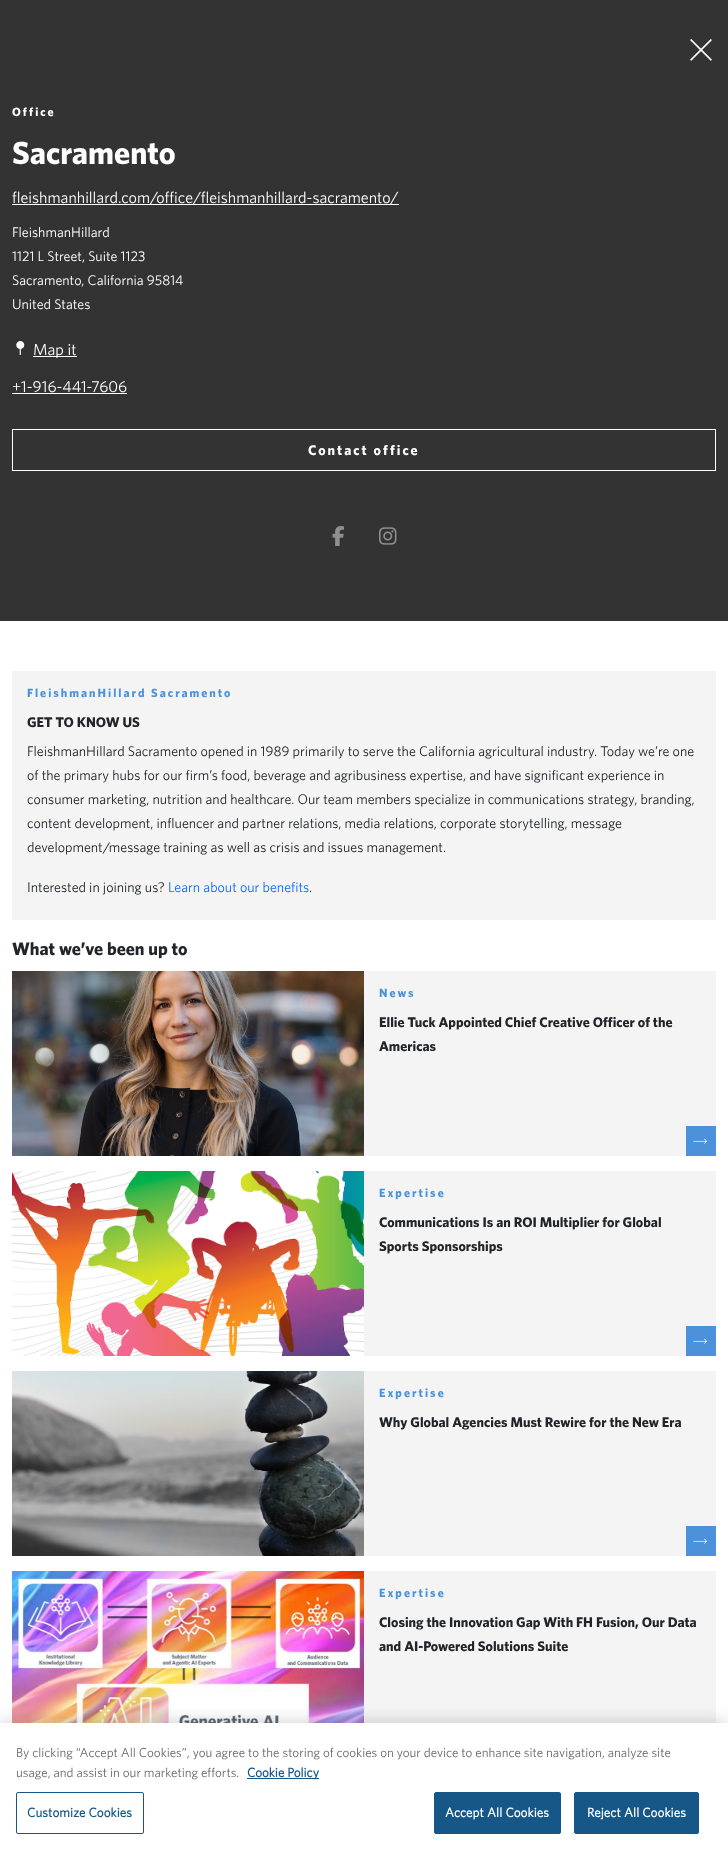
async function draw(canvas) {
  canvas.width = 728
  canvas.height = 1853
  const ctx = canvas.getContext('2d')
  ctx.miterLimit = 4
  ctx.fontKerning = 'normal'
  async function loadImage(src) {
    const img = new Image()
    img.src = src
    await img.decode()
    return img
  }

  ctx.fillStyle = '#fff'
  ctx.fillRect(0, 0, 728, 1853)
  ctx.fillStyle = '#333'
  ctx.fillRect(0, 0, 728, 621)
  ctx.drawImage(await loadImage('image0.png'), 690, 39, 22, 22)
  ctx.letterSpacing = '2px'
  ctx.font = 'bold 12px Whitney'
  ctx.fillStyle = '#fff'
  ctx.fillText('Office', 12, 116)
  ctx.letterSpacing = '0px'
  ctx.font = 'bold 32px Whitney'
  ctx.fillText('Sacramento', 12, 164)
  ctx.fillRect(12, 204, 387, 1)
  ctx.font = '16px Whitney'
  ctx.fillText('fleishmanhillard.com/office/fleishmanhillard-sacramento/', 12, 203)
  ctx.font = '14px Whitney'
  ctx.fillText('FleishmanHillard', 12, 237)
  ctx.fillText('1121 L Street, Suite 1123', 12, 261)
  ctx.fillText('Sacramento, California 95814', 12, 285)
  ctx.fillText('United States', 12, 309)
  ctx.drawImage(await loadImage('image1.png'), 16, 341, 9, 14)
  ctx.fillRect(33, 356, 44, 1)
  ctx.font = '16px Whitney'
  ctx.fillText('Map it', 33, 355)
  ctx.fillText('+1-916-441-7606', 12, 392)
  ctx.fillRect(12, 393, 115, 1)
  ctx.strokeStyle = '#fff'
  ctx.strokeRect(12.5, 429.5, 703, 41)
  ctx.letterSpacing = '2px'
  ctx.font = 'bold 14px Whitney'
  ctx.fillText('Contact office', 308, 455)
  ctx.drawImage(await loadImage('image2.png'), 332, 526, 12, 20)
  ctx.drawImage(await loadImage('image3.png'), 379, 527, 18, 18)
  ctx.fillStyle = '#f4f4f4'
  ctx.fillRect(12, 671, 704, 249)
  ctx.font = 'bold 12px Whitney'
  ctx.fillStyle = '#4b92db'
  ctx.fillText('FleishmanHillard Sacramento', 27, 697)
  ctx.letterSpacing = '0px'
  ctx.font = 'bold 14px Whitney'
  ctx.fillStyle = '#212529'
  ctx.fillText('GET TO KNOW US', 27, 727)
  ctx.font = '14px Whitney'
  ctx.fillText('FleishmanHillard Sacramento opened in 1989 primarily to serve the California agricultural industry. Today we’re one', 27, 756)
  ctx.fillText('of the primary hubs for our firm’s food, beverage and agribusiness expertise, and have significant experience in', 27, 780)
  ctx.fillText('consumer marketing, nutrition and healthcare. Our team members specialize in communications strategy, branding,', 27, 804)
  ctx.fillText('content development, influencer and partner relations, media relations, corporate storytelling, message', 27, 828)
  ctx.fillText('development/message training as well as crisis and issues management.', 27, 852)
  ctx.fillText('Interested in joining us?', 27, 892)
  ctx.fillStyle = '#0d6efd'
  ctx.fillText('Learn about our benefits', 168, 892)
  ctx.fillStyle = '#212529'
  ctx.fillText('.', 309, 892)
  ctx.font = 'bold 18px Whitney'
  ctx.fillText('What we’ve been up to', 12, 955)
  ctx.drawImage(await loadImage('image4.png'), 12, 971, 352, 185)
  ctx.fillStyle = '#f4f4f4'
  ctx.fillRect(364, 971, 352, 185)
  ctx.letterSpacing = '2px'
  ctx.font = 'bold 12px Whitney'
  ctx.fillStyle = '#4b92db'
  ctx.fillText('News', 379, 997)
  ctx.letterSpacing = '0px'
  ctx.font = 'bold 14px Whitney'
  ctx.fillStyle = '#212529'
  ctx.fillText('Ellie Tuck Appointed Chief Creative Officer of the', 379, 1027)
  ctx.fillText('Americas', 379, 1051)
  ctx.fillStyle = '#4b92db'
  ctx.fillRect(686, 1126, 30, 30)
  ctx.drawImage(await loadImage('image5.png'), 693, 1138, 14, 6)
  ctx.drawImage(await loadImage('image6.png'), 12, 1171, 352, 185)
  ctx.fillStyle = '#f4f4f4'
  ctx.fillRect(364, 1171, 352, 185)
  ctx.letterSpacing = '2px'
  ctx.font = 'bold 12px Whitney'
  ctx.fillStyle = '#4b92db'
  ctx.fillText('Expertise', 379, 1197)
  ctx.letterSpacing = '0px'
  ctx.font = 'bold 14px Whitney'
  ctx.fillStyle = '#212529'
  ctx.fillText('Communications Is an ROI Multiplier for Global', 379, 1227)
  ctx.fillText('Sports Sponsorships', 379, 1251)
  ctx.fillStyle = '#4b92db'
  ctx.fillRect(686, 1326, 30, 30)
  ctx.drawImage(await loadImage('image5.png'), 693, 1338, 14, 6)
  ctx.drawImage(await loadImage('image7.png'), 12, 1371, 352, 185)
  ctx.fillStyle = '#f4f4f4'
  ctx.fillRect(364, 1371, 352, 185)
  ctx.letterSpacing = '2px'
  ctx.font = 'bold 12px Whitney'
  ctx.fillStyle = '#4b92db'
  ctx.fillText('Expertise', 379, 1397)
  ctx.letterSpacing = '0px'
  ctx.font = 'bold 14px Whitney'
  ctx.fillStyle = '#212529'
  ctx.fillText('Why Global Agencies Must Rewire for the New Era', 379, 1427)
  ctx.fillStyle = '#4b92db'
  ctx.fillRect(686, 1526, 30, 30)
  ctx.drawImage(await loadImage('image5.png'), 693, 1538, 14, 6)
  ctx.drawImage(await loadImage('image8.png'), 12, 1571, 352, 152)
  ctx.fillStyle = '#f4f4f4'
  ctx.fillRect(364, 1571, 352, 152)
  ctx.letterSpacing = '2px'
  ctx.font = 'bold 12px Whitney'
  ctx.fillStyle = '#4b92db'
  ctx.fillText('Expertise', 379, 1597)
  ctx.letterSpacing = '0px'
  ctx.font = 'bold 14px Whitney'
  ctx.fillStyle = '#212529'
  ctx.fillText('Closing the Innovation Gap With FH Fusion, Our Data', 379, 1627)
  ctx.fillText('and AI-Powered Solutions Suite', 379, 1651)
  ctx.fillStyle = '#00000033'
  ctx.filter = 'blur(9px)'
  ctx.beginPath()
  ctx.rect(0, 1723, 728, 130)
  ctx.fill()
  ctx.filter = 'none'
  ctx.fillStyle = '#fff'
  ctx.fillRect(0, 1723, 728, 130)
  ctx.font = '13px Whitney'
  ctx.fillStyle = '#696969'
  ctx.fillText('By clicking “Accept All Cookies”, you agree to the storing of cookies on your device to enhance site navigation, analyze site', 16, 1757)
  ctx.fillText('usage, and assist in our marketing efforts.', 16, 1777)
  ctx.fillStyle = '#165788'
  ctx.fillRect(247, 1778, 72, 1)
  ctx.font = 'bold 13px "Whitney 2"'
  ctx.fillText('Cookie Policy', 247, 1777)
  ctx.beginPath()
  ctx.roundRect(16.5, 1792.5, 127, 41, 1.5)
  ctx.strokeStyle = '#165788'
  ctx.stroke()
  ctx.letterSpacing = '0.1px'
  ctx.fillText('Customize Cookies', 27, 1817)
  ctx.beginPath()
  ctx.roundRect(434.5, 1792.5, 126, 41, 1.5)
  ctx.fill()
  ctx.stroke()
  ctx.fillStyle = '#fff'
  ctx.fillText('Accept All Cookies', 445, 1817)
  ctx.fillStyle = '#165788'
  ctx.beginPath()
  ctx.roundRect(574.5, 1792.5, 124, 41, 1.5)
  ctx.fill()
  ctx.stroke()
  ctx.fillStyle = '#fff'
  ctx.fillText('Reject All Cookies', 587, 1817)
}

draw(document.querySelector('canvas'))
